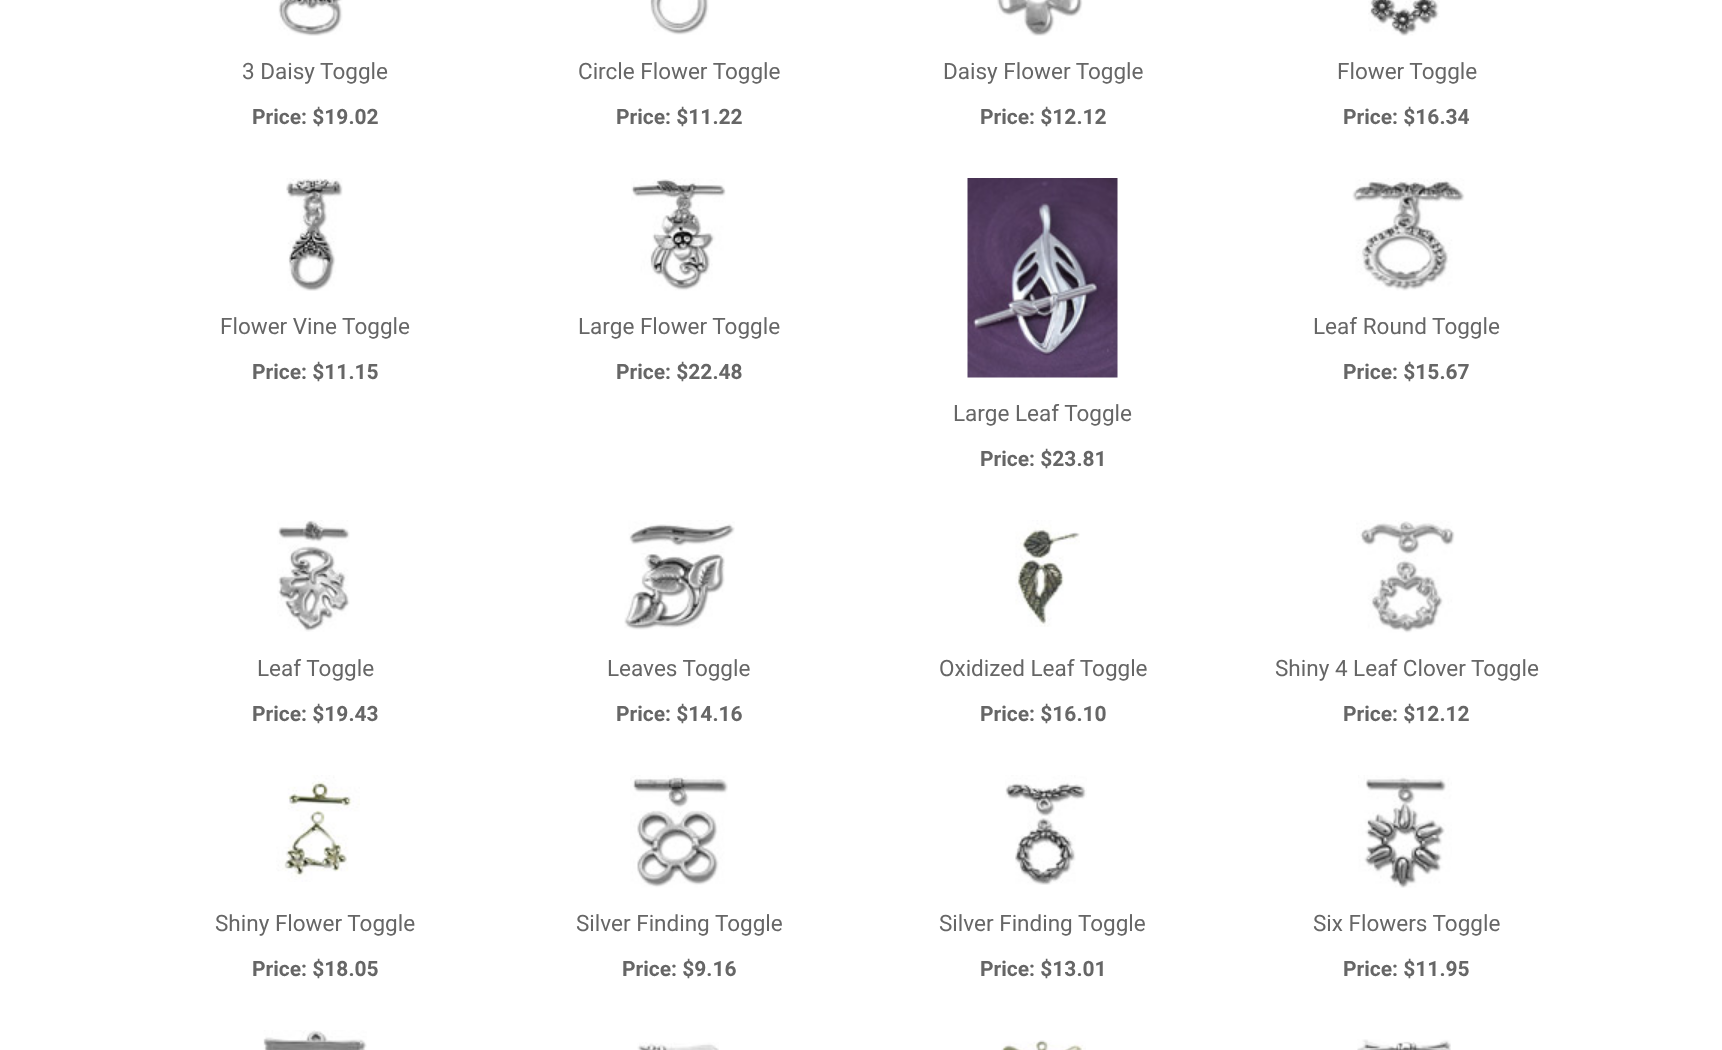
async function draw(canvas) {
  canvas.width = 1722
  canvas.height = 1050
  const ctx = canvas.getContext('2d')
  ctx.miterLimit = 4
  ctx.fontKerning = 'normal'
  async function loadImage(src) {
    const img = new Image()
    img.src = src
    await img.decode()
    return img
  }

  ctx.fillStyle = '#fff'
  ctx.fillRect(0, 0, 1722, 1050)
  ctx.drawImage(await loadImage('image0.png'), 278, 0, 65, 36)
  ctx.font = '22.5px Roboto'
  ctx.fillStyle = '#666'
  ctx.fillText('3 Daisy Toggle', 242, 79)
  ctx.font = 'bold 21px Roboto'
  ctx.fillText('Price: $19.02', 252, 124)
  ctx.drawImage(await loadImage('image1.png'), 650, 0, 59, 35)
  ctx.font = '22.5px Roboto'
  ctx.fillText('Circle Flower Toggle', 578, 79)
  ctx.font = 'bold 21px Roboto'
  ctx.fillText('Price: $11.22', 616, 124)
  ctx.drawImage(await loadImage('image2.png'), 996, 0, 87, 36)
  ctx.font = '22.5px Roboto'
  ctx.fillText('Daisy Flower Toggle', 943, 79)
  ctx.font = 'bold 21px Roboto'
  ctx.fillText('Price: $12.12', 980, 124)
  ctx.drawImage(await loadImage('image3.png'), 1368, 0, 72, 36)
  ctx.font = '22.5px Roboto'
  ctx.fillText('Flower Toggle', 1337, 79)
  ctx.font = 'bold 21px Roboto'
  ctx.fillText('Price: $16.34', 1343, 124)
  ctx.drawImage(await loadImage('image4.png'), 286, 178, 57, 113)
  ctx.font = '22.5px Roboto'
  ctx.fillText('Flower Vine Toggle', 220, 334)
  ctx.font = 'bold 21px Roboto'
  ctx.fillText('Price: $11.15', 252, 379)
  ctx.drawImage(await loadImage('image5.png'), 631, 178, 95, 113)
  ctx.font = '22.5px Roboto'
  ctx.fillText('Large Flower Toggle', 578, 334)
  ctx.font = 'bold 21px Roboto'
  ctx.fillText('Price: $22.48', 616, 379)
  ctx.drawImage(await loadImage('image6.png'), 1352, 178, 113, 113)
  ctx.font = '22.5px Roboto'
  ctx.fillText('Leaf Round Toggle', 1313, 334)
  ctx.font = 'bold 21px Roboto'
  ctx.fillText('Price: $15.67', 1343, 379)
  ctx.drawImage(await loadImage('image7.png'), 967, 178, 151, 200)
  ctx.font = '22.5px Roboto'
  ctx.fillText('Large Leaf Toggle', 953, 421)
  ctx.font = 'bold 21px Roboto'
  ctx.fillText('Price: $23.81', 980, 466)
  ctx.drawImage(await loadImage('image8.png'), 277, 520, 73, 112)
  ctx.font = '22.5px Roboto'
  ctx.fillText('Leaf Toggle', 257, 676)
  ctx.font = 'bold 21px Roboto'
  ctx.fillText('Price: $19.43', 252, 721)
  ctx.drawImage(await loadImage('image9.png'), 624, 520, 111, 110)
  ctx.font = '22.5px Roboto'
  ctx.fillText('Leaves Toggle', 607, 676)
  ctx.font = 'bold 21px Roboto'
  ctx.fillText('Price: $14.16', 616, 721)
  ctx.drawImage(await loadImage('image10.png'), 1015, 520, 65, 107)
  ctx.font = '22.5px Roboto'
  ctx.fillText('Oxidized Leaf Toggle', 939, 676)
  ctx.font = 'bold 21px Roboto'
  ctx.fillText('Price: $16.10', 980, 721)
  ctx.drawImage(await loadImage('image11.png'), 1356, 520, 99, 113)
  ctx.font = '22.5px Roboto'
  ctx.fillText('Shiny 4 Leaf Clover Toggle', 1275, 676)
  ctx.font = 'bold 21px Roboto'
  ctx.fillText('Price: $12.12', 1343, 721)
  ctx.drawImage(await loadImage('image12.png'), 276, 775, 84, 107)
  ctx.font = '22.5px Roboto'
  ctx.fillText('Shiny Flower Toggle', 215, 931)
  ctx.font = 'bold 21px Roboto'
  ctx.fillText('Price: $18.05', 252, 976)
  ctx.drawImage(await loadImage('image13.png'), 630, 775, 98, 113)
  ctx.font = '22.5px Roboto'
  ctx.fillText('Silver Finding Toggle', 576, 931)
  ctx.font = 'bold 21px Roboto'
  ctx.fillText('Price: $9.16', 622, 976)
  ctx.drawImage(await loadImage('image14.png'), 1005, 775, 82, 110)
  ctx.font = '22.5px Roboto'
  ctx.fillText('Silver Finding Toggle', 939, 931)
  ctx.font = 'bold 21px Roboto'
  ctx.fillText('Price: $13.01', 980, 976)
  ctx.drawImage(await loadImage('image15.png'), 1358, 775, 94, 113)
  ctx.font = '22.5px Roboto'
  ctx.fillText('Six Flowers Toggle', 1313, 931)
  ctx.font = 'bold 21px Roboto'
  ctx.fillText('Price: $11.95', 1343, 976)
  ctx.drawImage(await loadImage('image16.png'), 263, 1030, 104, 20)
  ctx.drawImage(await loadImage('image17.png'), 637, 1042, 82, 8)
  ctx.drawImage(await loadImage('image18.png'), 1001, 1040, 85, 10)
  ctx.drawImage(await loadImage('image19.png'), 1357, 1039, 94, 11)
}

draw(document.querySelector('canvas'))
